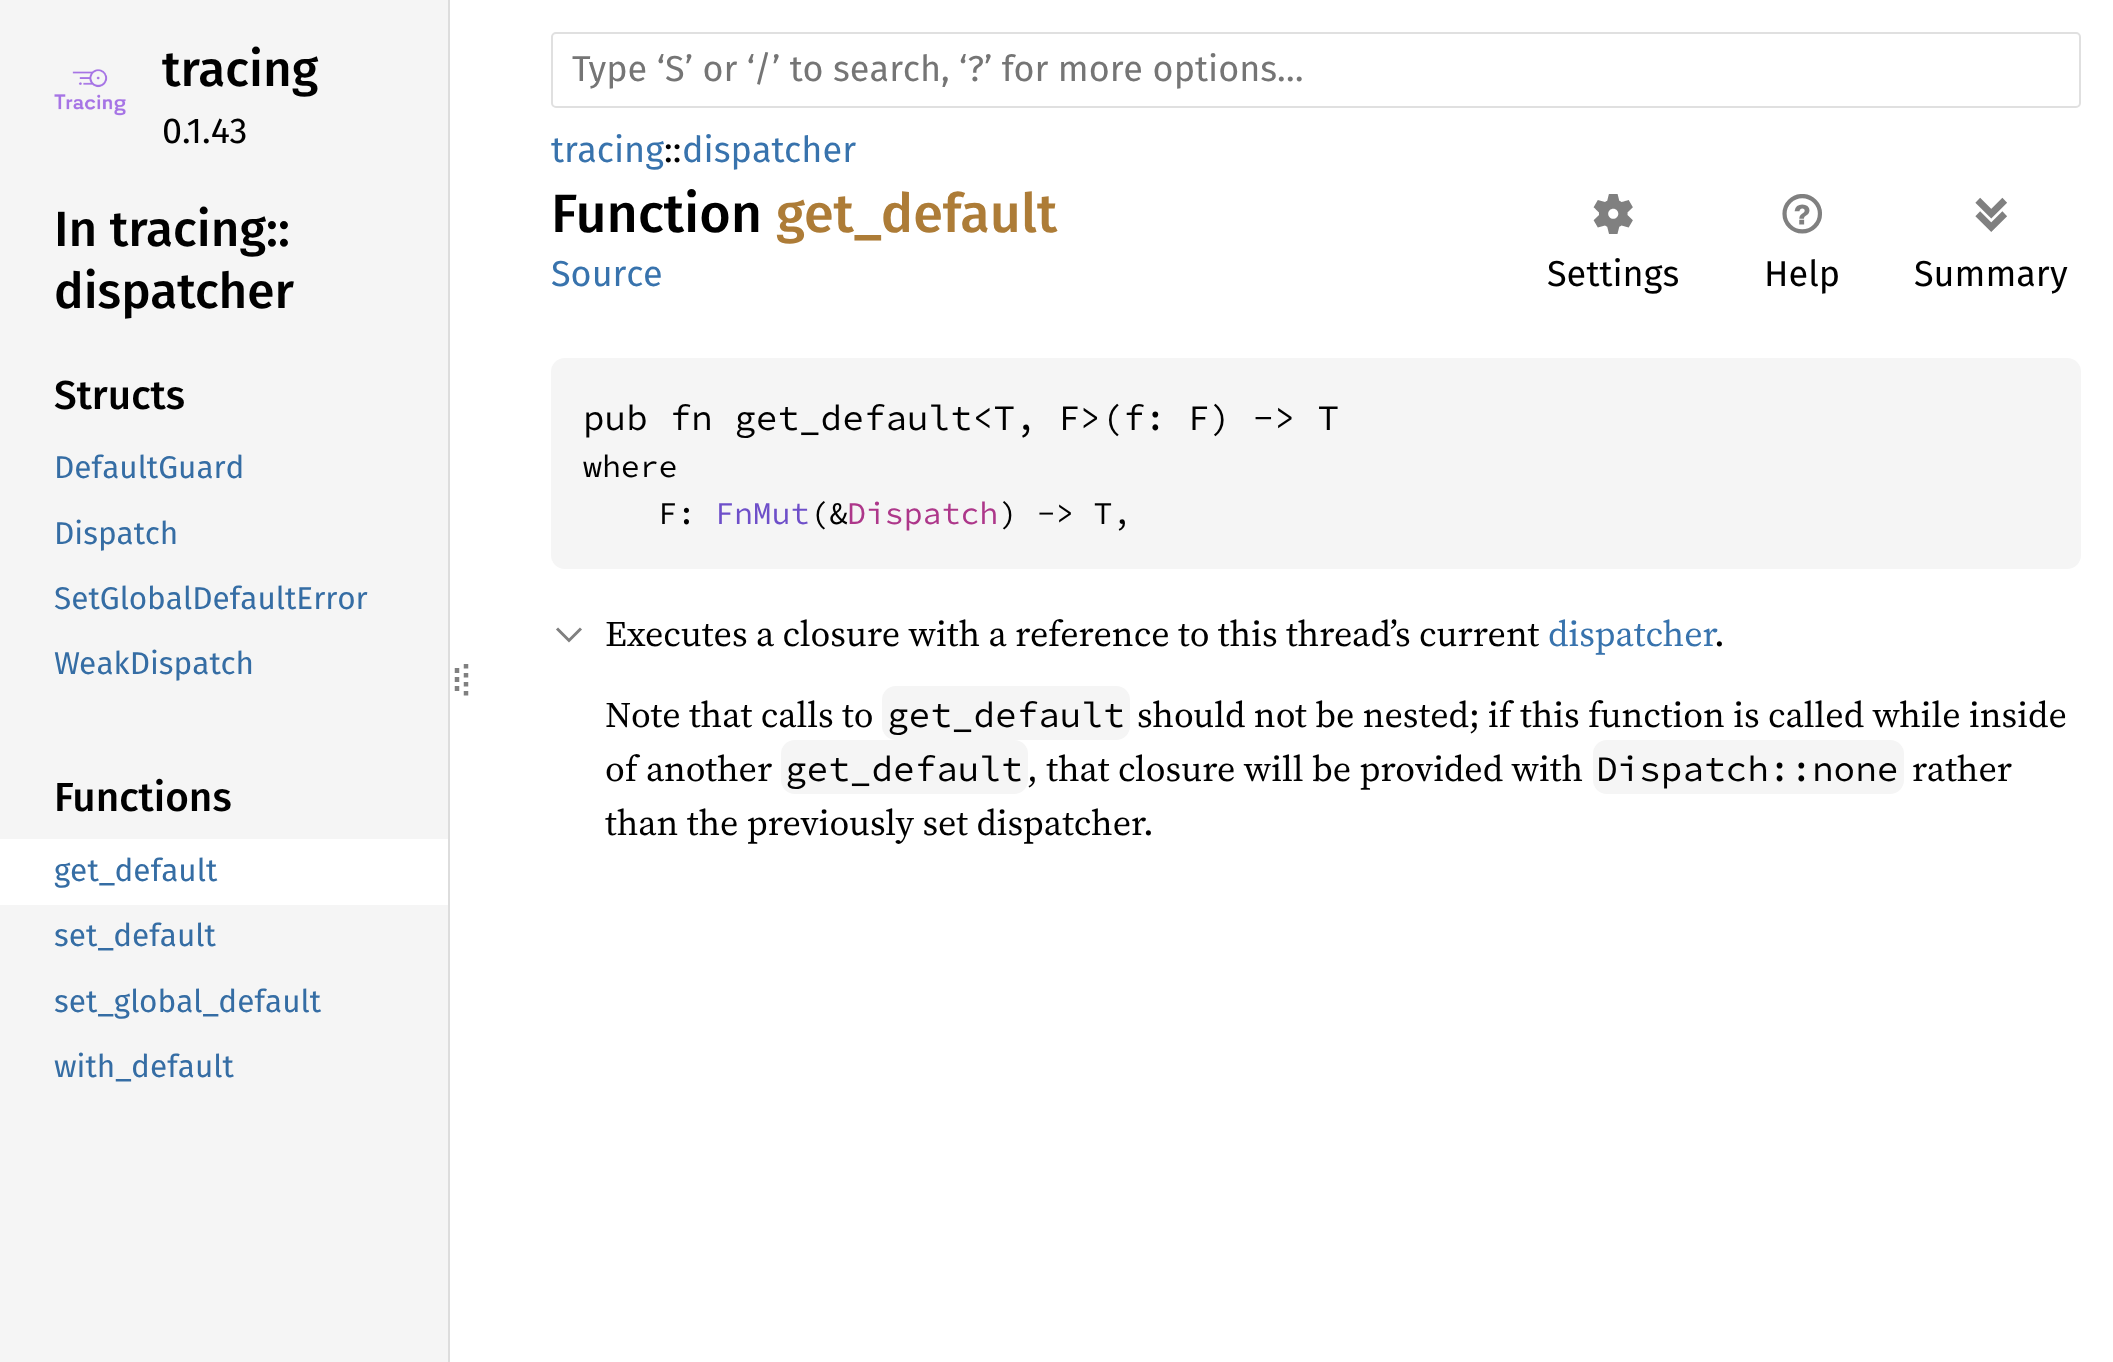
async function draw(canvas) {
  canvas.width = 2113
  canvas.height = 1362
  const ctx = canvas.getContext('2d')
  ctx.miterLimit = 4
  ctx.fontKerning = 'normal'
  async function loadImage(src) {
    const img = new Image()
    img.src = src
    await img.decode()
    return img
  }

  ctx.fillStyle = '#fff'
  ctx.fillRect(0, 0, 2113, 1362)
  ctx.fillStyle = '#f5f5f5'
  ctx.fillRect(0, 0, 448, 1362)
  ctx.fillStyle = '#ddd'
  ctx.fillRect(448, 0, 2, 1362)
  ctx.drawImage(await loadImage('image0.png'), 54, 69, 72, 47)
  ctx.font = '500 49.5px Fira Sans'
  ctx.fillStyle = '#000'
  ctx.fillText('tracing', 162, 86)
  ctx.font = '36px Fira Sans'
  ctx.fillText('0.1.43', 162, 143)
  ctx.font = '500 49.5px Fira Sans'
  ctx.fillText('In tracing::', 54, 246)
  ctx.fillText('dispatcher', 54, 308)
  ctx.font = '500 40.5px Fira Sans'
  ctx.fillText('Structs', 54, 409)
  ctx.font = '31.5px Fira Sans'
  ctx.fillStyle = '#356da4'
  ctx.fillText('DefaultGuard', 54, 478)
  ctx.fillText('Dispatch', 54, 544)
  ctx.fillText('SetGlobalDefaultError', 54, 609)
  ctx.fillText('WeakDispatch', 54, 674)
  ctx.font = '500 40.5px Fira Sans'
  ctx.fillStyle = '#000'
  ctx.fillText('Functions', 54, 811)
  ctx.fillStyle = '#fff'
  ctx.fillRect(0, 839, 448, 66)
  ctx.font = '31.5px Fira Sans'
  ctx.fillStyle = '#356da4'
  ctx.fillText('get_default', 54, 881)
  ctx.fillText('set_default', 54, 946)
  ctx.fillText('set_global_default', 54, 1012)
  ctx.fillText('with_default', 54, 1077)
  ctx.beginPath()
  ctx.moveTo(457, 668)
  ctx.lineTo(457, 673)
  ctx.moveTo(457, 677)
  ctx.lineTo(457, 682)
  ctx.moveTo(457, 686)
  ctx.lineTo(457, 691)
  ctx.strokeStyle = '#808080'
  ctx.lineWidth = 4.5
  ctx.stroke()
  ctx.beginPath()
  ctx.moveTo(466, 664)
  ctx.lineTo(466, 700)
  ctx.setLineDash([4.5, 4.5])
  ctx.stroke()
  ctx.beginPath()
  ctx.roundRect(552, 33, 1528, 74, 4)
  ctx.strokeStyle = '#e0e0e0'
  ctx.lineWidth = 2
  ctx.setLineDash([])
  ctx.stroke()
  ctx.font = '36px Fira Sans'
  ctx.fillStyle = '#757575'
  ctx.fillText('Type ‘S’ or ‘/’ to search, ‘?’ for more options…', 572, 81)
  ctx.fillStyle = '#3873ad'
  ctx.fillText('tracing', 551, 162)
  ctx.fillStyle = '#000'
  ctx.fillText('::', 664, 162)
  ctx.fillStyle = '#3873ad'
  ctx.fillText('dispatcher', 682, 162)
  ctx.font = '500 54px Fira Sans'
  ctx.fillStyle = '#000'
  ctx.fillText('Function', 551, 232)
  ctx.fillStyle = '#ad7c37'
  ctx.fillText('get_default', 776, 232)
  ctx.font = '36px Fira Sans'
  ctx.fillStyle = '#3873ad'
  ctx.fillText('Source', 551, 286)
  ctx.drawImage(await loadImage('image1.png'), 1593, 194, 40, 40)
  ctx.fillStyle = '#000'
  ctx.fillText('Settings', 1547, 286)
  ctx.drawImage(await loadImage('image2.png'), 1782, 194, 40, 40)
  ctx.fillText('Help', 1764, 286)
  ctx.drawImage(await loadImage('image3.png'), 1975, 197, 32, 35)
  ctx.fillText('Summary', 1914, 286)
  ctx.fillStyle = '#f5f5f5'
  ctx.beginPath()
  ctx.roundRect(551, 358, 1530, 211, 14)
  ctx.fill()
  ctx.font = '36px Source Code Pro'
  ctx.fillStyle = '#000'
  ctx.fillText('pub fn get_default<T, F>(f: F) -> T', 583, 430)
  ctx.font = '31.5px Source Code Pro'
  ctx.fillText('where', 583, 477)
  ctx.fillText('F:', 658, 524)
  ctx.fillStyle = '#6e4fc9'
  ctx.fillText('FnMut', 715, 524)
  ctx.fillStyle = '#000'
  ctx.fillText('(&', 810, 524)
  ctx.fillStyle = '#ad378a'
  ctx.fillText('Dispatch', 847, 524)
  ctx.fillStyle = '#000'
  ctx.fillText(') -> T,', 999, 524)
  ctx.beginPath()
  ctx.moveTo(557, 628.5)
  ctx.lineTo(569, 640.5)
  ctx.lineTo(581, 628.5)
  ctx.strokeStyle = '#808080'
  ctx.lineWidth = 3
  ctx.stroke()
  ctx.font = '36px "Source Serif 4"'
  ctx.fillText('Executes a closure with a reference to this thread’s current', 605, 646)
  ctx.fillStyle = '#3873ad'
  ctx.fillText('dispatcher', 1548, 646)
  ctx.fillStyle = '#000'
  ctx.fillText('.', 1714, 646)
  ctx.fillText('Note that calls to', 605, 727)
  ctx.fillStyle = '#f5f5f5'
  ctx.beginPath()
  ctx.roundRect(882, 686, 248, 54, 14)
  ctx.fill()
  ctx.font = '36px Source Code Pro'
  ctx.fillStyle = '#000'
  ctx.fillText('get_default', 887, 727)
  ctx.font = '36px "Source Serif 4"'
  ctx.fillText('should not be nested; if this function is called while inside', 1137, 727)
  ctx.fillText('of another', 605, 781)
  ctx.fillStyle = '#f5f5f5'
  ctx.beginPath()
  ctx.roundRect(781, 740, 247, 54, 14)
  ctx.fill()
  ctx.font = '36px Source Code Pro'
  ctx.fillStyle = '#000'
  ctx.fillText('get_default', 785, 781)
  ctx.font = '36px "Source Serif 4"'
  ctx.fillText(', that closure will be provided with', 1027, 781)
  ctx.fillStyle = '#f5f5f5'
  ctx.beginPath()
  ctx.roundRect(1593, 740, 311, 54, 14)
  ctx.fill()
  ctx.font = '36px Source Code Pro'
  ctx.fillStyle = '#000'
  ctx.fillText('Dispatch::none', 1596, 781)
  ctx.font = '36px "Source Serif 4"'
  ctx.fillText('rather', 1912, 781)
  ctx.fillText('than the previously set dispatcher.', 605, 835)
}

draw(document.querySelector('canvas'))
